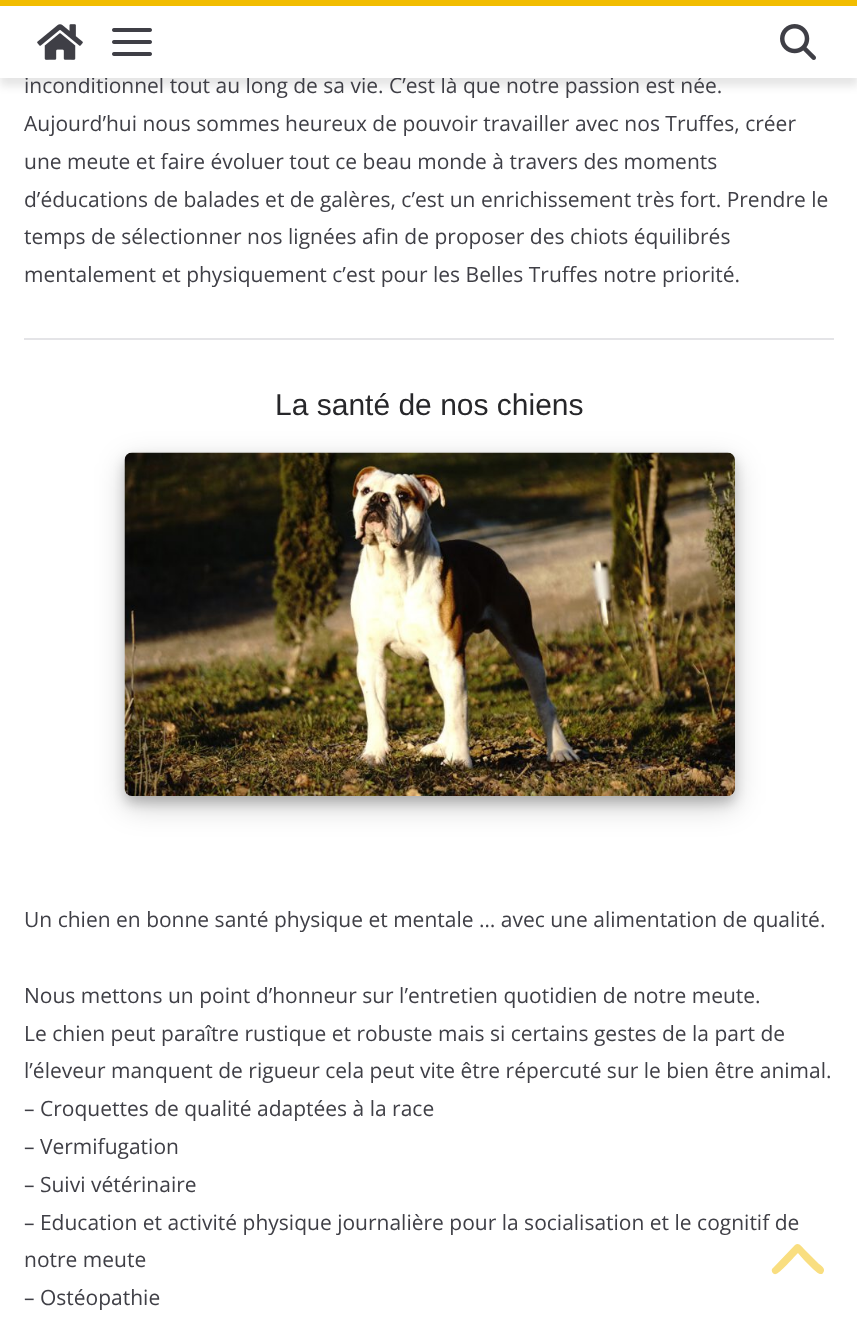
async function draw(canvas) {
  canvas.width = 857
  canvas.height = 1328
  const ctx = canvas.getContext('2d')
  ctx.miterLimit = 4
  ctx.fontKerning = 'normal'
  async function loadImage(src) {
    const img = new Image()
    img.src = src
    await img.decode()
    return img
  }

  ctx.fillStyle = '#fff'
  ctx.fillRect(0, 0, 857, 1328)
  ctx.fillStyle = '#0000001a'
  ctx.filter = 'blur(4.5px)'
  ctx.beginPath()
  ctx.rect(0, 8, 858, 78)
  ctx.fill()
  ctx.filter = 'none'
  ctx.font = '21px Open Sans'
  ctx.fillStyle = '#3f3f46'
  ctx.fillText('inconditionnel tout au long de sa vie. C’est là que notre passion est née.', 24, 93)
  ctx.fillStyle = '#fff'
  ctx.fillRect(0, 6, 857, 72)
  ctx.fillStyle = '#f2bd00'
  ctx.fillRect(0, 0, 857, 6)
  ctx.drawImage(await loadImage('image0.png'), 37, 24, 46, 36)
  ctx.drawImage(await loadImage('image1.png'), 112, 28, 40, 28)
  ctx.drawImage(await loadImage('image2.png'), 780, 24, 36, 36)
  ctx.fillStyle = '#3f3f46'
  ctx.fillText('Aujourd’hui nous sommes heureux de pouvoir travailler avec nos Truffes, créer', 24, 131)
  ctx.fillText('une meute et faire évoluer tout ce beau monde à travers des moments', 24, 169)
  ctx.fillText('d’éducations de balades et de galères, c’est un enrichissement très fort. Prendre le', 24, 207)
  ctx.fillText('temps de sélectionner nos lignées afin de proposer des chiots équilibrés', 24, 244)
  ctx.fillText('mentalement et physiquement c’est pour les Belles Truffes notre priorité.', 24, 282)
  ctx.fillStyle = '#e4e4e7'
  ctx.fillRect(24, 338, 810, 2)
  ctx.font = '30px Liberation Sans'
  ctx.fillStyle = '#27272a'
  ctx.fillText('La santé de nos chiens', 275, 415)
  ctx.fillStyle = '#00000030'
  ctx.filter = 'blur(15px)'
  ctx.beginPath()
  ctx.roundRect(125, 462, 610, 344, 8)
  ctx.fill()
  ctx.filter = 'none'
  ctx.fillStyle = '#00000033'
  ctx.filter = 'blur(6px)'
  ctx.beginPath()
  ctx.roundRect(125, 459, 610, 344, 8)
  ctx.fill()
  ctx.filter = 'none'
  ctx.drawImage(await loadImage('image3.png'), 124, 452, 611, 344)
  ctx.font = '21px Open Sans'
  ctx.fillStyle = '#3f3f46'
  ctx.fillText('Un chien en bonne santé physique et mentale … avec une alimentation de qualité.', 24, 927)
  ctx.fillText('Nous mettons un point d’honneur sur l’entretien quotidien de notre meute.', 24, 1003)
  ctx.fillText('Le chien peut paraître rustique et robuste mais si certains gestes de la part de', 24, 1041)
  ctx.fillText('l’éleveur manquent de rigueur cela peut vite être répercuté sur le bien être animal.', 24, 1078)
  ctx.fillText('– Croquettes de qualité adaptées à la race', 24, 1116)
  ctx.fillText('– Vermifugation', 24, 1154)
  ctx.fillText('– Suivi vétérinaire', 24, 1192)
  ctx.fillText('– Education et activité physique journalière pour la socialisation et le cognitif de', 24, 1230)
  ctx.fillText('notre meute', 24, 1267)
  ctx.fillText('– Ostéopathie', 24, 1305)
  ctx.fillStyle = '#f9de80'
  ctx.beginPath()
  ctx.moveTo(795, 1245)
  ctx.bezierCurveTo(799, 1242, 802, 1247, 804, 1249)
  ctx.lineTo(819, 1264)
  ctx.bezierCurveTo(822, 1266, 826, 1269, 823, 1273)
  ctx.bezierCurveTo(823, 1274, 821, 1274, 820, 1274)
  ctx.bezierCurveTo(817, 1274, 801, 1257, 798, 1253)
  ctx.bezierCurveTo(795, 1256, 779, 1274, 776, 1274)
  ctx.bezierCurveTo(773, 1275, 770, 1270, 773, 1268)
  ctx.closePath()
  ctx.fill()
}

draw(document.querySelector('canvas'))
